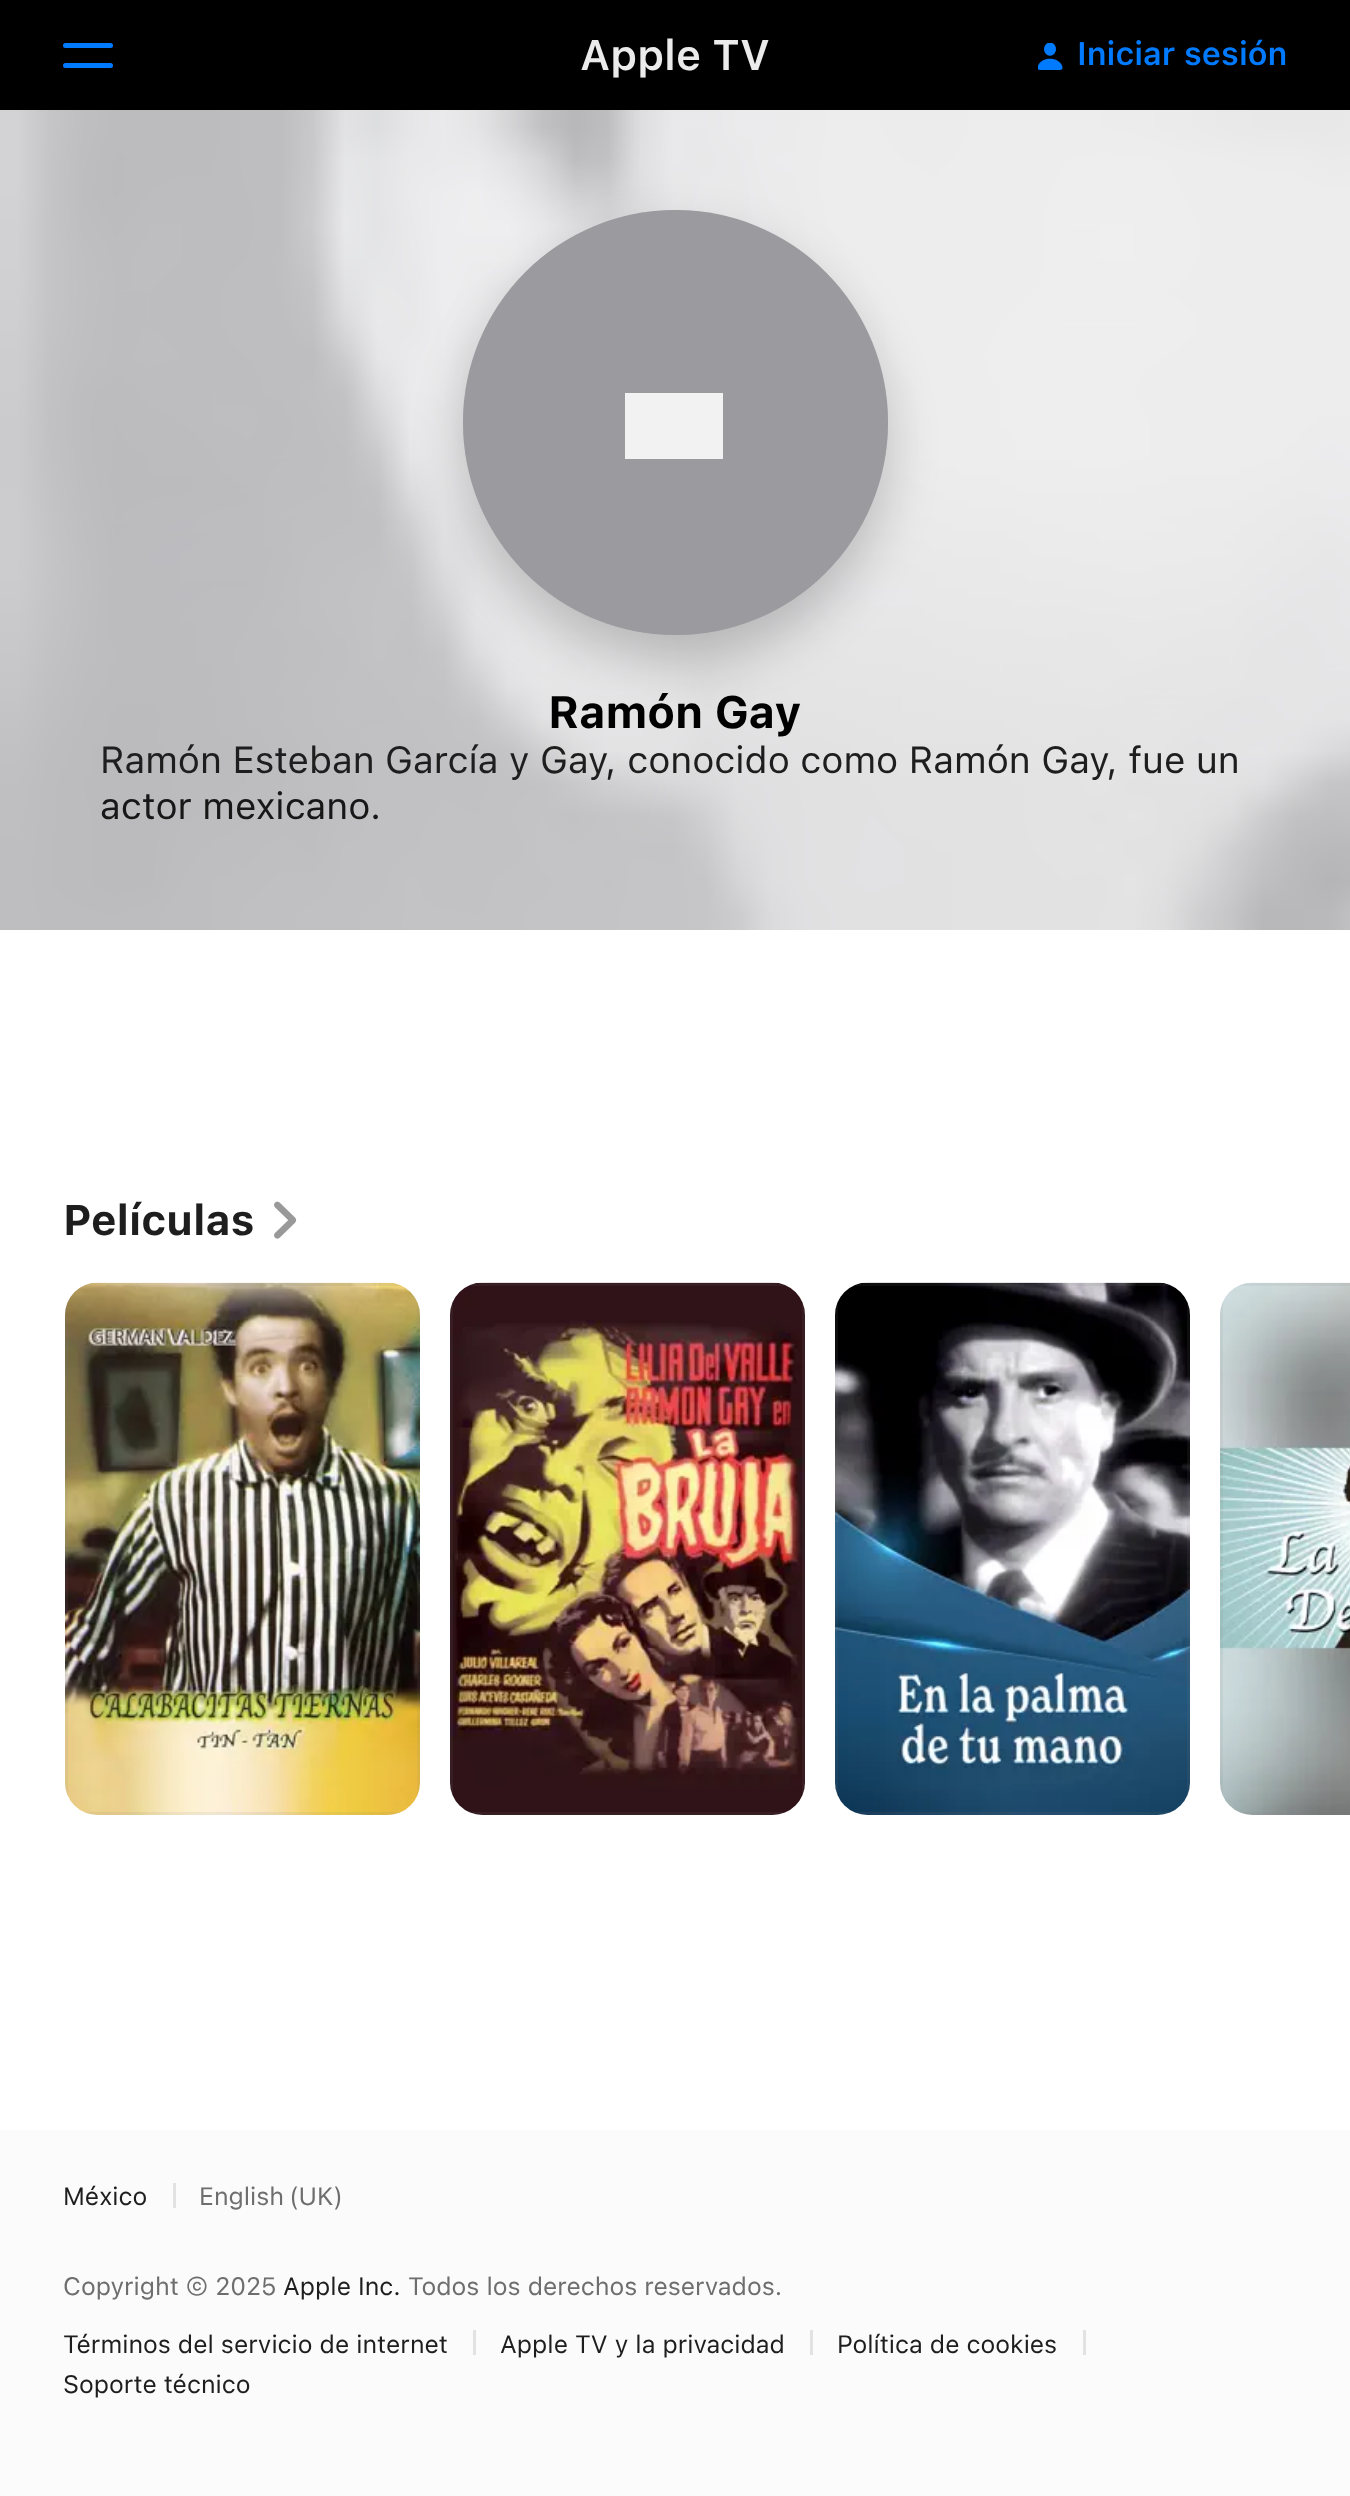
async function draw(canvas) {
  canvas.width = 1350
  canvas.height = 2496
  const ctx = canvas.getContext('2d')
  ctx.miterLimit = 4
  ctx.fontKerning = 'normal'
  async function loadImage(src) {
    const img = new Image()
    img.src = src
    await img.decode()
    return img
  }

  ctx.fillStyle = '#fff'
  ctx.fillRect(0, 0, 1350, 2496)
  ctx.fillStyle = '#000'
  ctx.fillRect(0, 0, 1350, 110)
  ctx.fillStyle = '#007aff'
  ctx.beginPath()
  ctx.roundRect(63, 43, 50, 5, 2.5)
  ctx.fill()
  ctx.beginPath()
  ctx.roundRect(63, 63, 50, 5, 2.5)
  ctx.fill()
  ctx.font = '600 42.5px SF'
  ctx.fillStyle = '#ebebeb'
  ctx.fillText('Apple TV', 580, 70)
  ctx.drawImage(await loadImage('image0.png'), 1038, 43, 25, 27)
  ctx.font = '600 32.5px SF'
  ctx.fillStyle = '#007aff'
  ctx.fillText('Iniciar sesión', 1077, 65)
  ctx.drawImage(await loadImage('image1.png'), 0, 110, 1350, 820)
  ctx.fillStyle = '#00000033'
  ctx.filter = 'blur(25px)'
  ctx.beginPath()
  ctx.roundRect(463, 235, 425, 425, 212.5)
  ctx.fill()
  ctx.filter = 'none'
  ctx.beginPath()
  ctx.arc(675.5, 422.5, 211, 0, 2 * Math.PI)
  ctx.strokeStyle = '#00000014'
  ctx.lineWidth = 3
  ctx.stroke()
  ctx.fillStyle = '#9d9ea3'
  ctx.beginPath()
  ctx.arc(675.5, 422.5, 212.5, 0, 2 * Math.PI)
  ctx.fill()
  ctx.fillStyle = '#fff'
  ctx.fillRect(625, 393, 98, 66)
  ctx.fillStyle = '#8080801a'
  ctx.beginPath()
  ctx.moveTo(676, 210)
  ctx.bezierCurveTo(793, 210, 888, 305, 888, 422)
  ctx.bezierCurveTo(888, 540, 793, 635, 676, 635)
  ctx.bezierCurveTo(558, 635, 463, 540, 463, 422)
  ctx.bezierCurveTo(463, 305, 558, 210, 676, 210)
  ctx.closePath()
  ctx.fill()
  ctx.font = 'bold 45px "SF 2"'
  ctx.fillStyle = '#000'
  ctx.fillText('Ramón Gay', 548, 728)
  ctx.font = '37.5px SF'
  ctx.fillStyle = '#1e1e1e'
  ctx.fillText('Ramón Esteban García y Gay, conocido como Ramón Gay, fue un', 100, 773)
  ctx.fillStyle = '#171717'
  ctx.fillText('actor mexicano.', 100, 819)
  ctx.font = 'bold 42.5px SF'
  ctx.fillStyle = '#1e1e1e'
  ctx.fillText('Películas', 63, 1235)
  ctx.drawImage(await loadImage('image2.png'), 274, 1201, 23, 38)
  ctx.drawImage(await loadImage('image3.png'), 65, 1282, 355, 533)
  ctx.fillStyle = '#8080801a'
  ctx.beginPath()
  ctx.moveTo(65, 1316)
  ctx.lineTo(65, 1782)
  ctx.bezierCurveTo(65, 1787, 66, 1792, 68, 1796)
  ctx.lineTo(68, 1302)
  ctx.bezierCurveTo(66, 1306, 65, 1311, 65, 1316)
  ctx.closePath()
  ctx.moveTo(98, 1283)
  ctx.bezierCurveTo(93, 1283, 88, 1284, 84, 1286)
  ctx.lineTo(401, 1286)
  ctx.bezierCurveTo(397, 1284, 392, 1283, 387, 1283)
  ctx.closePath()
  ctx.moveTo(420, 1316)
  ctx.bezierCurveTo(420, 1311, 419, 1306, 417, 1302)
  ctx.lineTo(417, 1796)
  ctx.bezierCurveTo(419, 1792, 420, 1787, 420, 1782)
  ctx.closePath()
  ctx.moveTo(387, 1815)
  ctx.bezierCurveTo(392, 1815, 397, 1814, 401, 1812)
  ctx.lineTo(84, 1812)
  ctx.bezierCurveTo(88, 1814, 93, 1815, 98, 1815)
  ctx.closePath()
  ctx.fill('evenodd')
  ctx.drawImage(await loadImage('image4.png'), 450, 1282, 355, 533)
  ctx.beginPath()
  ctx.moveTo(450, 1316)
  ctx.lineTo(450, 1782)
  ctx.bezierCurveTo(450, 1787, 451, 1792, 453, 1796)
  ctx.lineTo(453, 1302)
  ctx.bezierCurveTo(451, 1306, 450, 1311, 450, 1316)
  ctx.closePath()
  ctx.moveTo(483, 1283)
  ctx.bezierCurveTo(478, 1283, 473, 1284, 469, 1286)
  ctx.lineTo(786, 1286)
  ctx.bezierCurveTo(782, 1284, 777, 1283, 772, 1283)
  ctx.closePath()
  ctx.moveTo(805, 1316)
  ctx.bezierCurveTo(805, 1311, 804, 1306, 802, 1302)
  ctx.lineTo(802, 1796)
  ctx.bezierCurveTo(804, 1792, 805, 1787, 805, 1782)
  ctx.closePath()
  ctx.moveTo(772, 1815)
  ctx.bezierCurveTo(777, 1815, 782, 1814, 786, 1812)
  ctx.lineTo(469, 1812)
  ctx.bezierCurveTo(473, 1814, 478, 1815, 483, 1815)
  ctx.closePath()
  ctx.fill('evenodd')
  ctx.drawImage(await loadImage('image5.png'), 835, 1282, 355, 533)
  ctx.beginPath()
  ctx.moveTo(835, 1316)
  ctx.lineTo(835, 1782)
  ctx.bezierCurveTo(835, 1787, 836, 1792, 838, 1796)
  ctx.lineTo(838, 1302)
  ctx.bezierCurveTo(836, 1306, 835, 1311, 835, 1316)
  ctx.closePath()
  ctx.moveTo(868, 1283)
  ctx.bezierCurveTo(863, 1283, 858, 1284, 854, 1286)
  ctx.lineTo(1171, 1286)
  ctx.bezierCurveTo(1167, 1284, 1162, 1283, 1157, 1283)
  ctx.closePath()
  ctx.moveTo(1190, 1316)
  ctx.bezierCurveTo(1190, 1311, 1189, 1306, 1187, 1302)
  ctx.lineTo(1187, 1796)
  ctx.bezierCurveTo(1189, 1792, 1190, 1787, 1190, 1782)
  ctx.closePath()
  ctx.moveTo(1157, 1815)
  ctx.bezierCurveTo(1162, 1815, 1167, 1814, 1171, 1812)
  ctx.lineTo(854, 1812)
  ctx.bezierCurveTo(858, 1814, 863, 1815, 868, 1815)
  ctx.closePath()
  ctx.fill('evenodd')
  ctx.drawImage(await loadImage('image6.png'), 1220, 1282, 130, 533)
  ctx.beginPath()
  ctx.moveTo(1220, 1316)
  ctx.lineTo(1220, 1782)
  ctx.bezierCurveTo(1220, 1787, 1221, 1792, 1223, 1796)
  ctx.lineTo(1223, 1302)
  ctx.bezierCurveTo(1221, 1306, 1220, 1311, 1220, 1316)
  ctx.closePath()
  ctx.moveTo(1253, 1283)
  ctx.bezierCurveTo(1248, 1283, 1243, 1284, 1239, 1286)
  ctx.lineTo(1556, 1286)
  ctx.bezierCurveTo(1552, 1284, 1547, 1283, 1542, 1283)
  ctx.closePath()
  ctx.moveTo(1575, 1316)
  ctx.bezierCurveTo(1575, 1311, 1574, 1306, 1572, 1302)
  ctx.lineTo(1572, 1796)
  ctx.bezierCurveTo(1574, 1792, 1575, 1787, 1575, 1782)
  ctx.closePath()
  ctx.moveTo(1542, 1815)
  ctx.bezierCurveTo(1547, 1815, 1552, 1814, 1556, 1812)
  ctx.lineTo(1239, 1812)
  ctx.bezierCurveTo(1243, 1814, 1248, 1815, 1253, 1815)
  ctx.closePath()
  ctx.fill('evenodd')
  ctx.fillStyle = '#fbfbfb'
  ctx.fillRect(0, 2130, 1350, 366)
  ctx.font = '25px SF'
  ctx.fillStyle = '#1e1e1e'
  ctx.fillText('México', 63, 2205)
  ctx.fillStyle = '#e2e2e2'
  ctx.fillRect(173, 2183, 3, 25)
  ctx.wordSpacing = '-2px'
  ctx.fillStyle = '#6e6e6e'
  ctx.fillText('English (UK)', 199, 2205)
  ctx.wordSpacing = '0px'
  ctx.fillText('Copyright © 2025', 63, 2295)
  ctx.fillStyle = '#1e1e1e'
  ctx.fillText('Apple Inc.', 283, 2295)
  ctx.fillStyle = '#6e6e6e'
  ctx.fillText('Todos los derechos reservados.', 408, 2295)
  ctx.fillStyle = '#1e1e1e'
  ctx.fillText('Términos del servicio de internet', 63, 2353)
  ctx.fillStyle = '#e2e2e2'
  ctx.fillRect(473, 2330, 3, 25)
  ctx.fillStyle = '#1e1e1e'
  ctx.fillText('Apple TV y la privacidad', 500, 2353)
  ctx.fillStyle = '#e2e2e2'
  ctx.fillRect(810, 2330, 3, 25)
  ctx.fillStyle = '#1e1e1e'
  ctx.fillText('Política de cookies', 837, 2353)
  ctx.fillStyle = '#e2e2e2'
  ctx.fillRect(1083, 2330, 3, 25)
  ctx.fillStyle = '#1e1e1e'
  ctx.fillText('Soporte técnico', 63, 2393)
}

draw(document.querySelector('canvas'))
